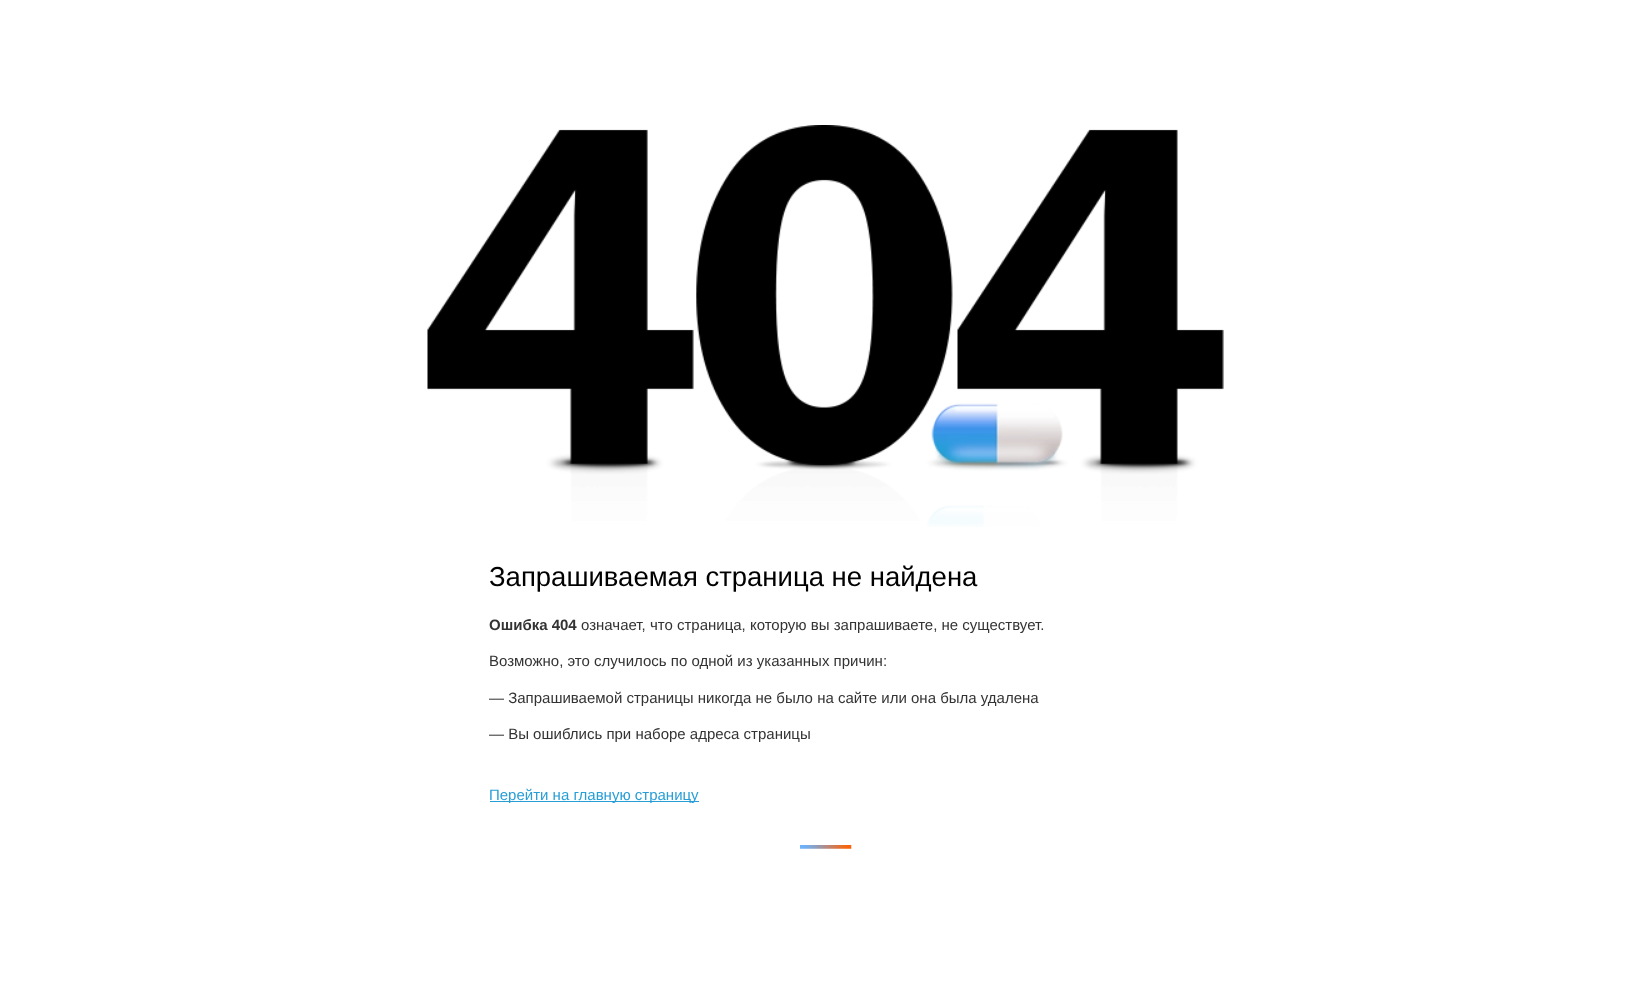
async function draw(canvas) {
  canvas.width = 1650
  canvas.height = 1008
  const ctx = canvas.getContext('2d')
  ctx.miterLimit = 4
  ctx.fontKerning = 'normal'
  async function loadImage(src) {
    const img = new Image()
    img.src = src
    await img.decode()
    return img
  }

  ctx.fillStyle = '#fff'
  ctx.fillRect(0, 0, 1650, 1008)
  ctx.drawImage(await loadImage('image0.png'), 427, 125, 797, 402)
  ctx.font = '27.5px Liberation Sans'
  ctx.fillStyle = '#000'
  ctx.fillText('Запрашиваемая страница не найдена', 489, 586)
  ctx.font = 'bold 15px Liberation Sans'
  ctx.fillStyle = '#333'
  ctx.fillText('Ошибка 404', 489, 630)
  ctx.font = '15px Liberation Sans'
  ctx.fillText('означает, что страница, которую вы запрашиваете, не существует.', 581, 630)
  ctx.fillText('Возможно, это случилось по одной из указанных причин:', 489, 666)
  ctx.fillText('— Запрашиваемой страницы никогда не было на сайте или она была удалена', 489, 703)
  ctx.fillText('— Вы ошиблись при наборе адреса страницы', 489, 739)
  ctx.fillStyle = '#289ed6'
  ctx.fillRect(490, 801, 209, 1)
  ctx.fillText('Перейти на главную страницу', 489, 800)
  ctx.drawImage(await loadImage('image1.png'), 800, 845, 52, 4)
}

draw(document.querySelector('canvas'))
